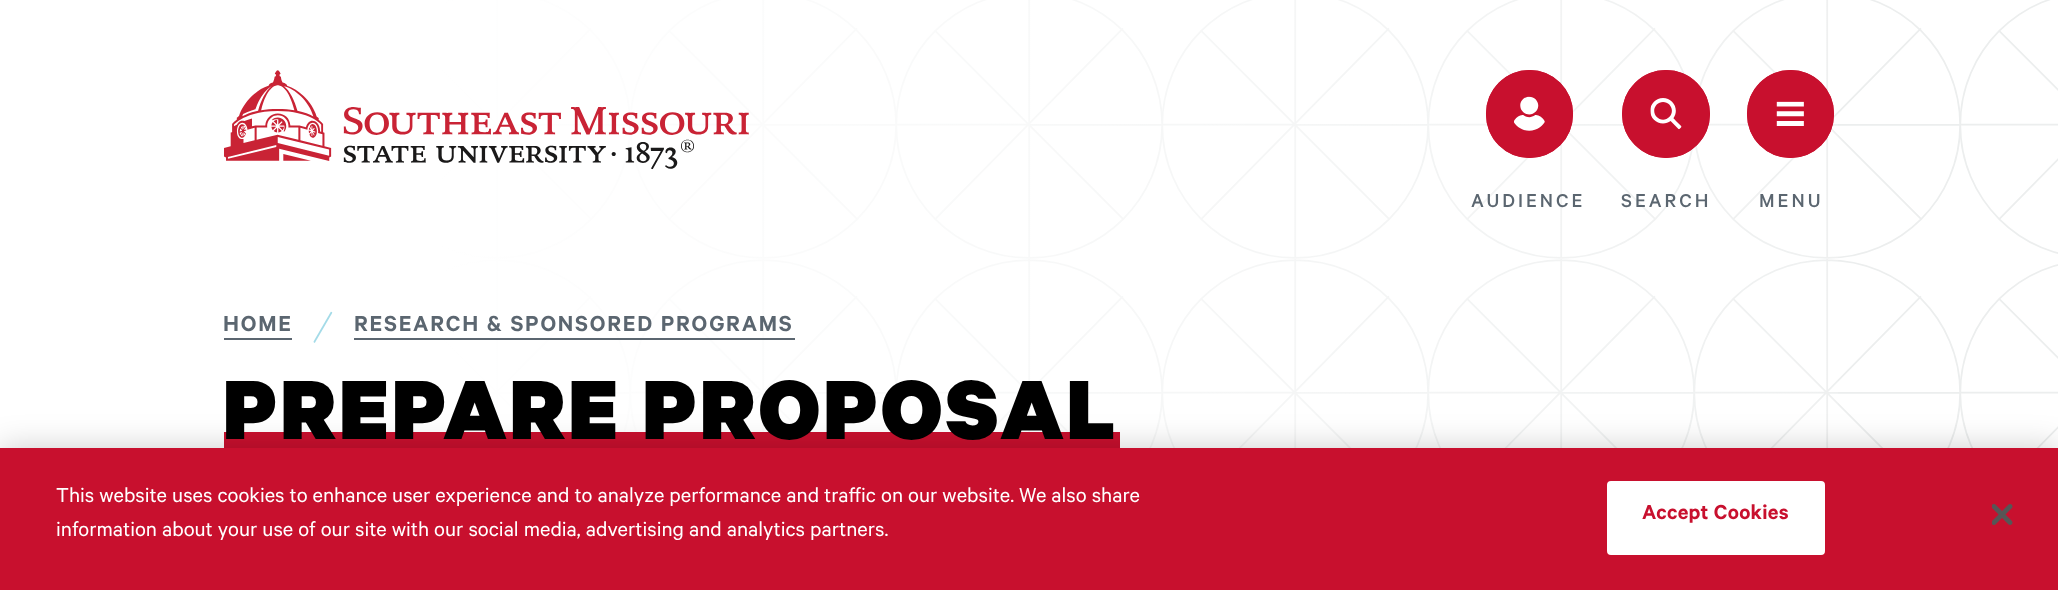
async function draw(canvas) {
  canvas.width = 2058
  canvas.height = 590
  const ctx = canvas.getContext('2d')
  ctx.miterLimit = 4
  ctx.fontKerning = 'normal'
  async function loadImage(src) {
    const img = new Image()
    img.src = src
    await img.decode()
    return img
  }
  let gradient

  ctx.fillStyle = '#fff'
  ctx.fillRect(0, 0, 2058, 590)
  ctx.drawImage(await loadImage('image0.png'), 442, 0, 1616, 448)
  gradient = ctx.createLinearGradient(0, 107, 2058, 107)
  gradient.addColorStop(0.21, '#fff')
  gradient.addColorStop(1, '#ffffff00')
  ctx.fillStyle = gradient
  ctx.fillRect(442, 0, 1396, 214)
  ctx.drawImage(await loadImage('image1.png'), 224, 70, 525, 100)
  ctx.beginPath()
  ctx.roundRect(1488.5, 72.5, 82, 83, 41)
  ctx.strokeStyle = '#c8102e'
  ctx.lineWidth = 5
  ctx.stroke()
  ctx.fillStyle = '#c8102e'
  ctx.beginPath()
  ctx.roundRect(1486, 70, 87, 88, 43.5)
  ctx.fill()
  ctx.drawImage(await loadImage('image2.png'), 1514, 96, 31, 35)
  ctx.letterSpacing = '3px'
  ctx.font = '500 21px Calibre'
  ctx.fillStyle = '#5b6670'
  ctx.fillText('AUDIENCE', 1471, 207)
  ctx.beginPath()
  ctx.arc(1666, 114, 41.5, 0, 2 * Math.PI)
  ctx.stroke()
  ctx.fillStyle = '#c8102e'
  ctx.beginPath()
  ctx.arc(1666, 114, 44, 0, 2 * Math.PI)
  ctx.fill()
  ctx.drawImage(await loadImage('image3.png'), 1650, 98, 32, 32)
  ctx.fillStyle = '#5b6670'
  ctx.fillText('SEARCH', 1621, 207)
  ctx.beginPath()
  ctx.roundRect(1749.5, 72.5, 82, 83, 41)
  ctx.stroke()
  ctx.fillStyle = '#c8102e'
  ctx.beginPath()
  ctx.roundRect(1747, 70, 87, 88, 43.5)
  ctx.fill()
  ctx.drawImage(await loadImage('image4.png'), 1776, 101, 28, 25)
  ctx.fillStyle = '#5b6670'
  ctx.fillText('MENU', 1759, 207)
  gradient = ctx.createLinearGradient(0, 511, 2058, 511)
  gradient.addColorStop(0.21, '#fff')
  gradient.addColorStop(1, '#ffffff00')
  ctx.fillStyle = gradient
  ctx.fillRect(442, 214, 1396, 234)
  ctx.fillStyle = '#5b6670'
  ctx.fillRect(224, 338, 68, 2)
  ctx.letterSpacing = '1.75px'
  ctx.font = '600 24.5px Calibre'
  ctx.fillText('HOME', 223, 331)
  ctx.drawImage(await loadImage('image5.png'), 313, 311, 20, 32)
  ctx.fillRect(354, 338, 441, 2)
  ctx.fillText('RESEARCH & SPONSORED PROGRAMS', 354, 331)
  ctx.fillStyle = '#c8102e'
  ctx.fillRect(224, 432, 896, 16)
  ctx.letterSpacing = '3.5px'
  ctx.font = '900 94.5px Calibre'
  ctx.fillStyle = '#000'
  ctx.fillText('PREPARE PROPOSAL', 223, 439)
  ctx.fillStyle = '#00000033'
  ctx.filter = 'blur(16px)'
  ctx.beginPath()
  ctx.rect(0, 448, 2058, 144)
  ctx.fill()
  ctx.filter = 'none'
  ctx.fillStyle = '#c8102e'
  ctx.fillRect(0, 448, 2058, 142)
  ctx.letterSpacing = '0px'
  ctx.font = '22.75px Calibre'
  ctx.fillStyle = '#fff'
  ctx.fillText('This website uses cookies to enhance user experience and to analyze performance and traffic on our website. We also share', 56, 502)
  ctx.fillText('information about your use of our site with our social media, advertising and analytics partners.', 56, 536)
  ctx.beginPath()
  ctx.roundRect(1608, 482, 216, 72, 3)
  ctx.fill()
  ctx.strokeStyle = '#fff'
  ctx.lineWidth = 2
  ctx.stroke()
  ctx.letterSpacing = '0.25px'
  ctx.font = '600 22.75px Calibre'
  ctx.fillStyle = '#c8102e'
  ctx.fillText('Accept Cookies', 1642, 519)
  ctx.drawImage(await loadImage('image6.png'), 1992, 504, 21, 21)
}

draw(document.querySelector('canvas'))
